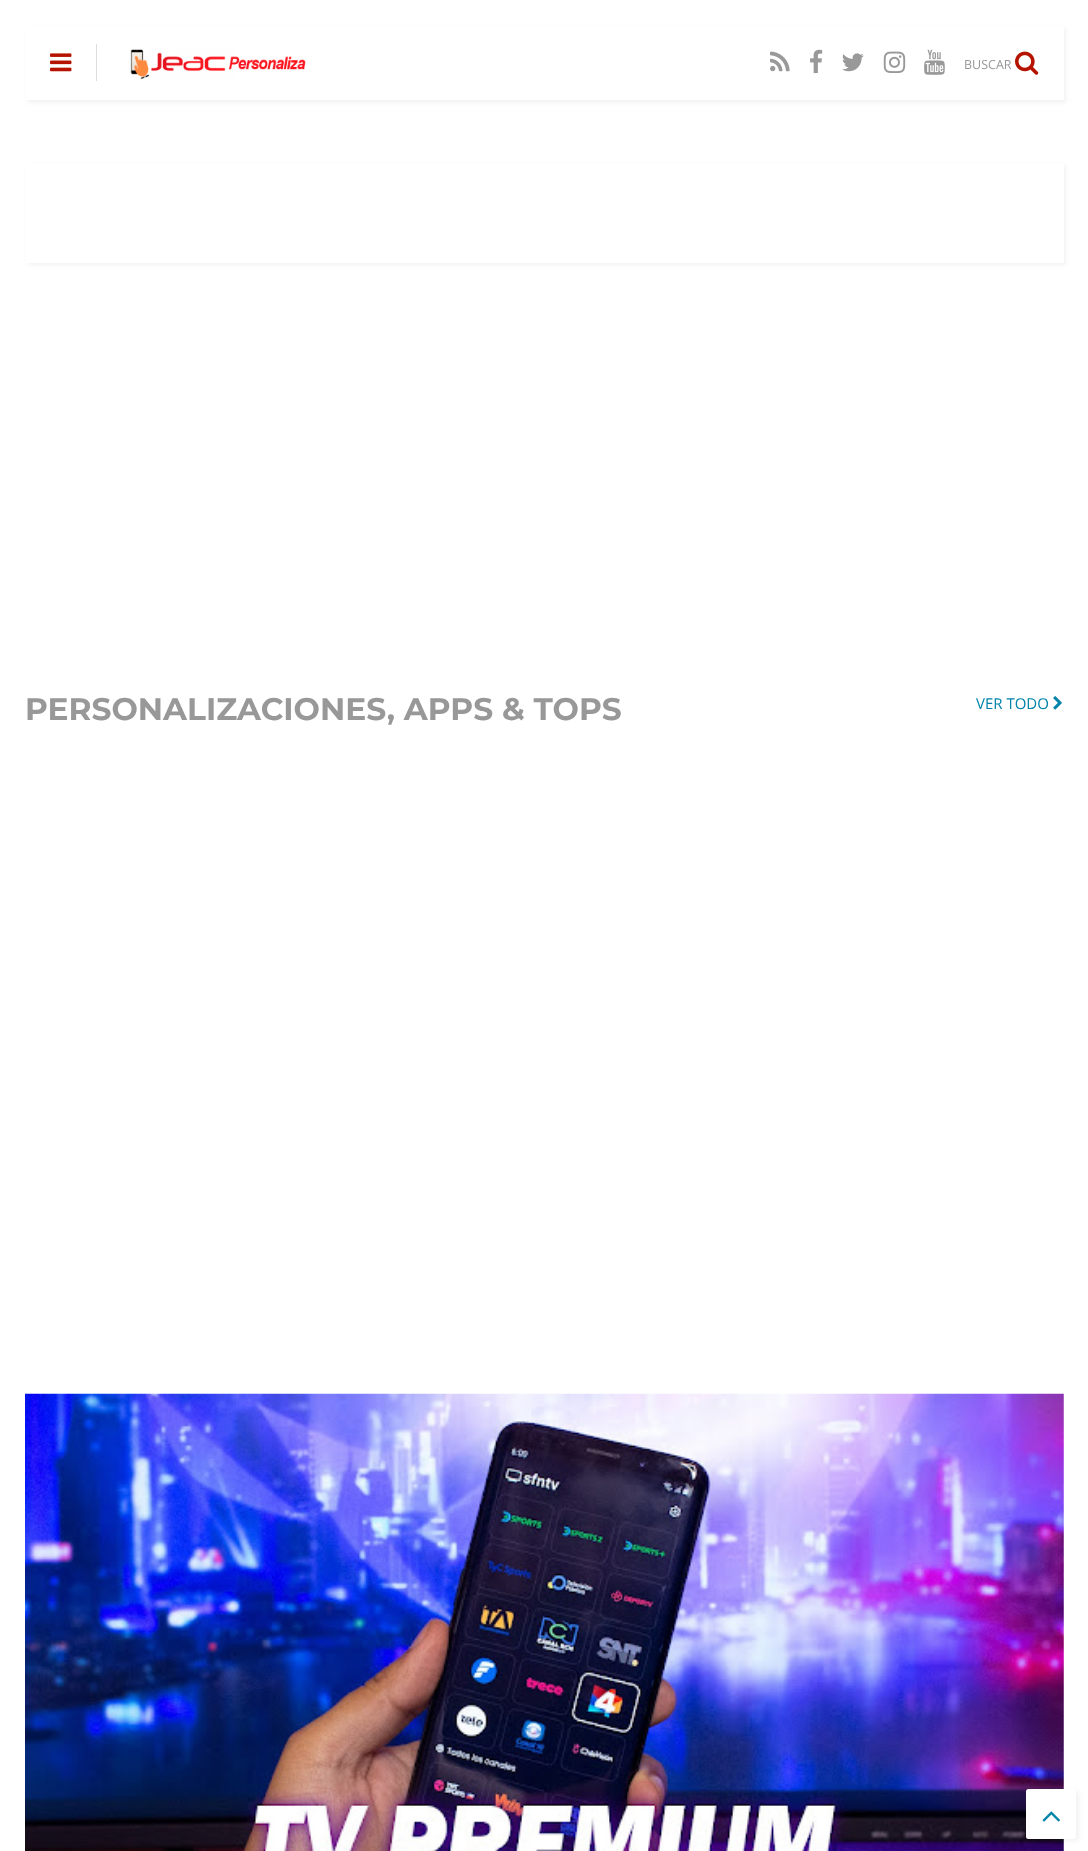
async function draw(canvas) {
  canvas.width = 1088
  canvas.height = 1851
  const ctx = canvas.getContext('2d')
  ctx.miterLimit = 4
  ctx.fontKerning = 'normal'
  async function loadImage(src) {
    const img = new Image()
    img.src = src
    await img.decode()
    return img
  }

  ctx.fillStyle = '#fff'
  ctx.fillRect(0, 0, 1088, 1851)
  ctx.fillStyle = '#0000000d'
  ctx.filter = 'blur(2px)'
  ctx.beginPath()
  ctx.rect(28, 28, 1038, 75)
  ctx.fill()
  ctx.filter = 'none'
  ctx.fillStyle = '#fff'
  ctx.fillRect(26, 26, 1038, 74)
  ctx.drawImage(await loadImage('image0.png'), 50, 53, 22, 19)
  ctx.fillStyle = '#ddd'
  ctx.fillRect(96, 44, 1, 37)
  ctx.drawImage(await loadImage('image1.png'), 130, 49, 176, 30)
  ctx.drawImage(await loadImage('image2.png'), 770, 51, 20, 21)
  ctx.drawImage(await loadImage('image3.png'), 810, 49, 13, 25)
  ctx.drawImage(await loadImage('image4.png'), 842, 53, 22, 19)
  ctx.drawImage(await loadImage('image5.png'), 883, 51, 23, 22)
  ctx.drawImage(await loadImage('image6.png'), 924, 49, 21, 26)
  ctx.font = '12.5px Open Sans'
  ctx.fillStyle = '#989898'
  ctx.fillText('BUSCAR', 964, 69)
  ctx.drawImage(await loadImage('image7.png'), 1015, 51, 24, 24)
  ctx.fillStyle = '#0000000d'
  ctx.filter = 'blur(2px)'
  ctx.beginPath()
  ctx.rect(28, 165, 1038, 100)
  ctx.fill()
  ctx.filter = 'none'
  ctx.fillStyle = '#fff'
  ctx.fillRect(26, 163, 1038, 100)
  ctx.font = '100 31.25px Montserrat'
  ctx.fillStyle = '#989898'
  ctx.fillText('PERSONALIZACIONES, APPS & TOPS', 25, 720)
  ctx.font = '15px Open Sans'
  ctx.fillStyle = '#0183aa'
  ctx.fillText('VER TODO', 976, 709)
  ctx.drawImage(await loadImage('image8.png'), 1053, 696, 9, 14)
  ctx.drawImage(await loadImage('image9.png'), 25, 1393, 1039, 458)
  ctx.fillStyle = '#0000000d'
  ctx.filter = 'blur(2px)'
  ctx.beginPath()
  ctx.roundRect(1029, 1791, 50, 50, 2.5)
  ctx.fill()
  ctx.filter = 'none'
  ctx.fillStyle = '#fff'
  ctx.beginPath()
  ctx.roundRect(1026, 1789, 50, 50, 2.5)
  ctx.fill()
  ctx.drawImage(await loadImage('image10.png'), 1042, 1811, 18, 11)
}

draw(document.querySelector('canvas'))
